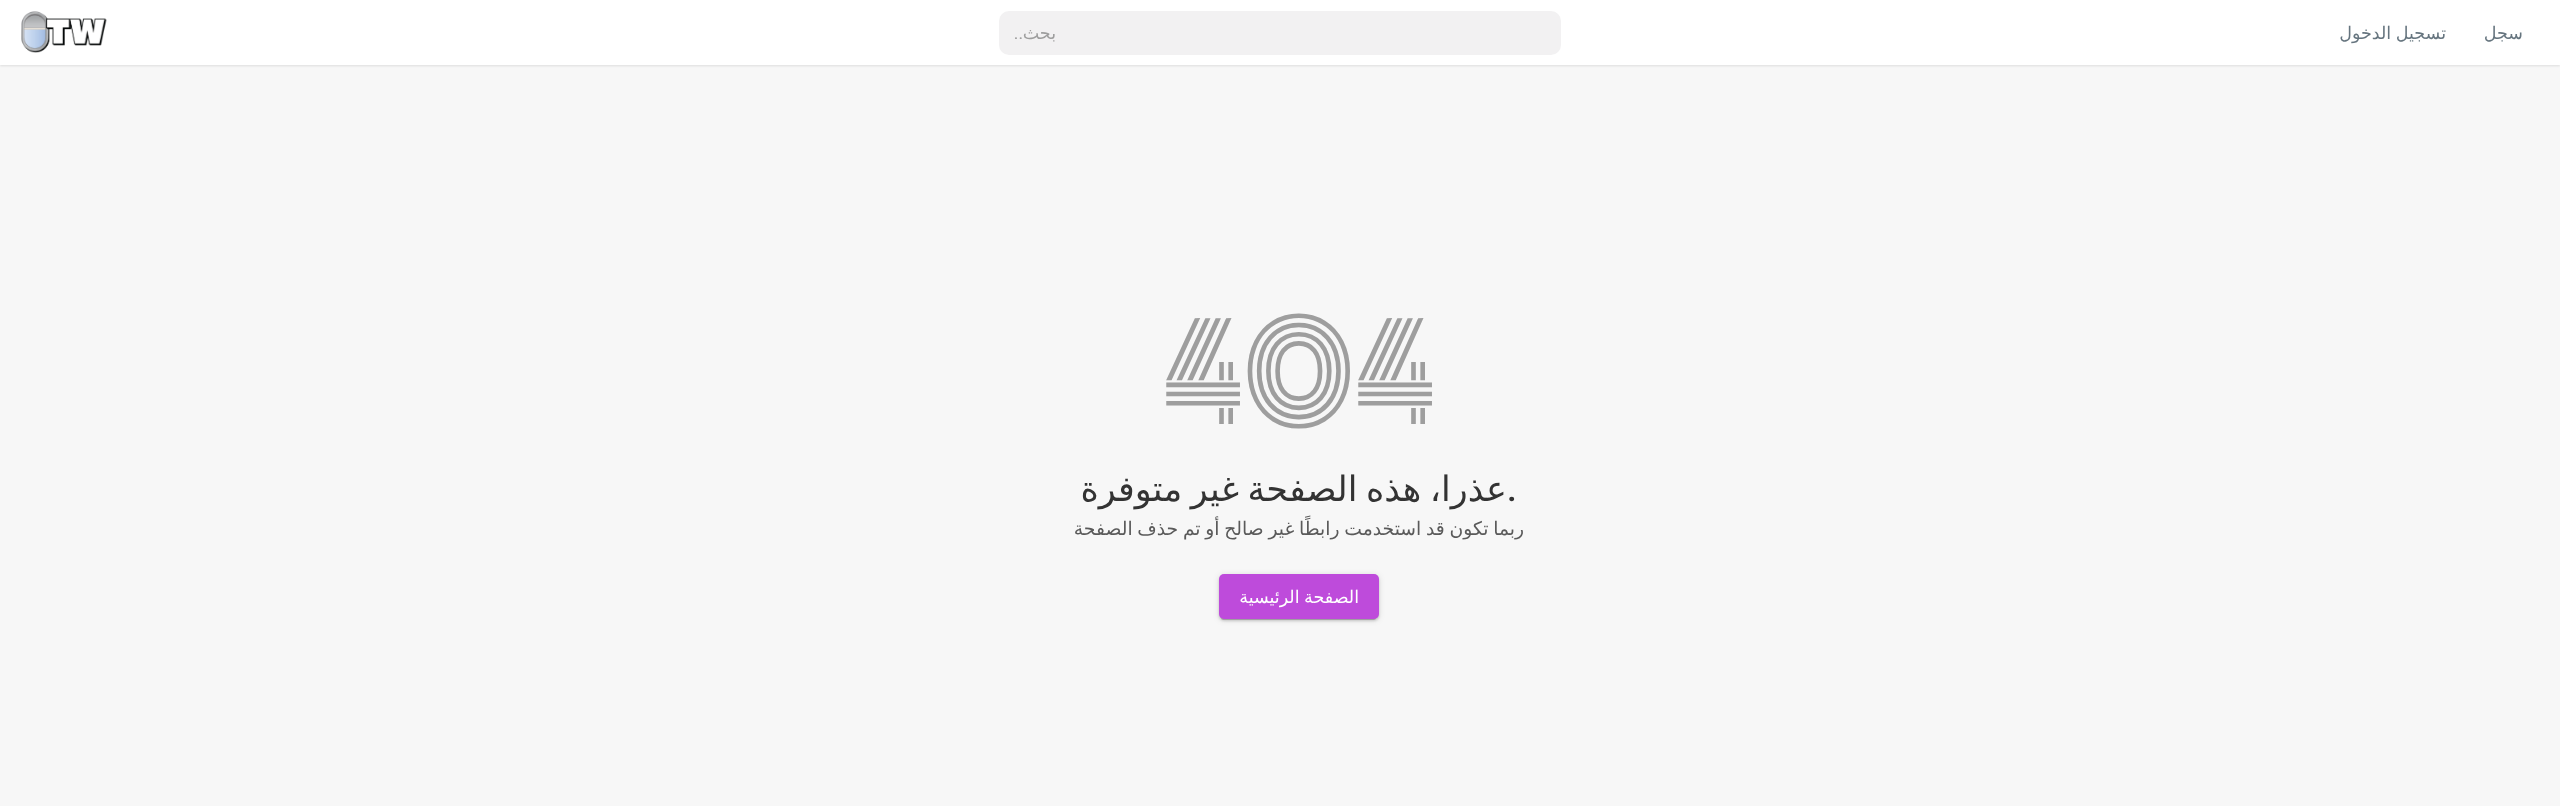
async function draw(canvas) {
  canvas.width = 2560
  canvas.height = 806
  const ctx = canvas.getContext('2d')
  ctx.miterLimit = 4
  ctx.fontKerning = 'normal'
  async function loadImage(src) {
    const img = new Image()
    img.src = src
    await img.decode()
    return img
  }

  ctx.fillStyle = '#f7f7f7'
  ctx.fillRect(0, 0, 2560, 806)
  ctx.fillStyle = '#0000001a'
  ctx.filter = 'blur(1px)'
  ctx.beginPath()
  ctx.rect(0, 1, 2560, 65)
  ctx.fill()
  ctx.filter = 'none'
  ctx.fillStyle = '#fff'
  ctx.fillRect(0, 0, 2560, 65)
  ctx.direction = 'rtl'
  ctx.font = '17.5px DejaVu Sans'
  ctx.fillStyle = '#66757f'
  ctx.fillText('سجل', 2523, 39)
  ctx.wordSpacing = '-1px'
  ctx.fillText('تسجيل الدخول', 2446, 39)
  ctx.fillStyle = '#f2f1f2'
  ctx.beginPath()
  ctx.roundRect(999, 11, 562, 44, 10)
  ctx.fill()
  ctx.wordSpacing = '0px'
  ctx.fillStyle = '#9e9e9e'
  ctx.fillText('بحث', 1056, 39)
  ctx.font = '17.5px Roboto'
  ctx.fillText('..', 1023, 39)
  ctx.drawImage(await loadImage('image0.png'), 21, 11, 86, 42)
  ctx.direction = 'ltr'
  ctx.font = '131px Monoton'
  ctx.fillText('404', 1162, 424)
  ctx.font = '500 35px Roboto'
  ctx.fillStyle = '#333'
  ctx.fillText('.', 1507, 501)
  ctx.wordSpacing = '-2.5px'
  ctx.direction = 'rtl'
  ctx.font = '35px DejaVu Sans'
  ctx.fillText('عذرا، هذه الصفحة غير متوفرة', 1507, 501)
  ctx.wordSpacing = '-1.25px'
  ctx.font = '18.75px DejaVu Sans'
  ctx.fillStyle = '#5a5a5a'
  ctx.fillText('ربما تكون قد استخدمت رابطًا غير صالح أو تم حذف الصفحة', 1524, 535)
  ctx.fillStyle = '#0000001f'
  ctx.filter = 'blur(3px)'
  ctx.beginPath()
  ctx.roundRect(1219, 575, 160, 45, 5)
  ctx.fill()
  ctx.filter = 'none'
  ctx.fillStyle = '#00000024'
  ctx.filter = 'blur(1px)'
  ctx.beginPath()
  ctx.roundRect(1219, 576, 160, 45, 5)
  ctx.fill()
  ctx.filter = 'none'
  ctx.fillStyle = '#00000033'
  ctx.filter = 'blur(0.5px)'
  ctx.beginPath()
  ctx.roundRect(1221, 580, 155, 40, 2.5)
  ctx.fill()
  ctx.filter = 'none'
  ctx.fillStyle = '#be4bdb'
  ctx.beginPath()
  ctx.roundRect(1219, 574, 160, 45, 5)
  ctx.fill()
  ctx.wordSpacing = '-1px'
  ctx.font = '17.5px DejaVu Sans'
  ctx.fillStyle = '#fff'
  ctx.fillText('الصفحة الرئيسية', 1359, 603)
}

draw(document.querySelector('canvas'))
